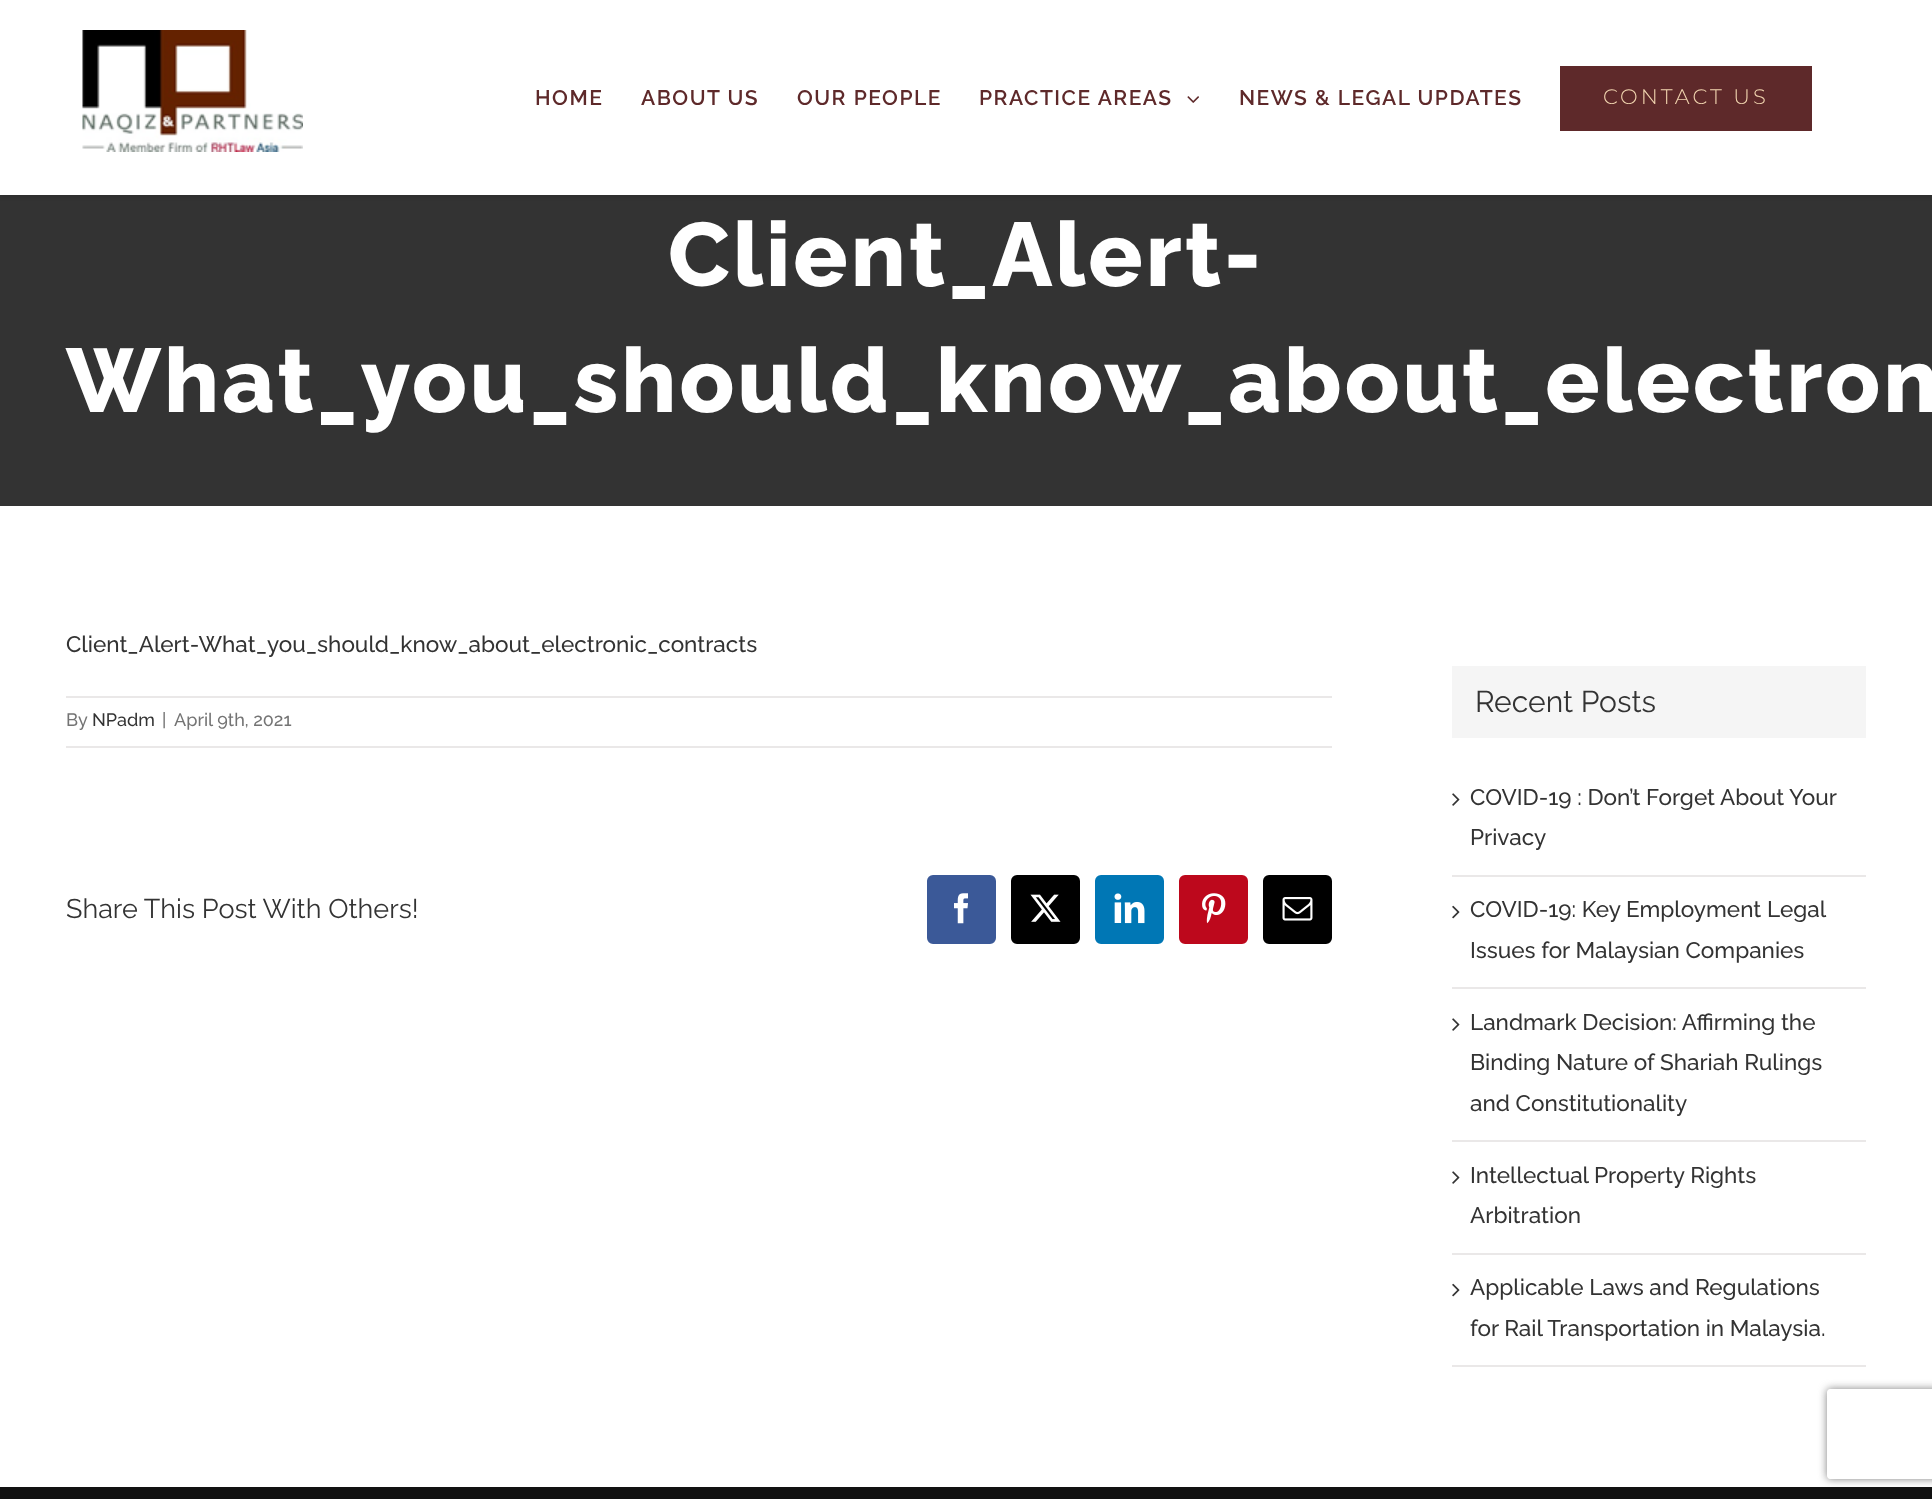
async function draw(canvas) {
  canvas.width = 1932
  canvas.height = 1499
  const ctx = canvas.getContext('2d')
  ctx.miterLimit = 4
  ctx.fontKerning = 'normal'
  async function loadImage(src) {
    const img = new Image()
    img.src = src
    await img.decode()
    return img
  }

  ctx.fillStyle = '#fff'
  ctx.fillRect(0, 0, 1932, 1499)
  ctx.fillStyle = '#333'
  ctx.fillRect(0, 195, 1932, 311)
  ctx.fillStyle = '#0000001f'
  ctx.filter = 'blur(2px)'
  ctx.beginPath()
  ctx.rect(0, 2, 1932, 195)
  ctx.fill()
  ctx.filter = 'none'
  ctx.fillStyle = '#fff'
  ctx.fillRect(0, 0, 1932, 195)
  ctx.drawImage(await loadImage('image0.png'), 82, 30, 221, 122)
  ctx.letterSpacing = '1.5px'
  ctx.font = '600 21px Raleway'
  ctx.fillStyle = '#5e292a'
  ctx.fillText('HOME', 535, 105)
  ctx.fillText('ABOUT US', 641, 105)
  ctx.fillText('OUR PEOPLE', 797, 105)
  ctx.fillText('PRACTICE AREAS', 979, 105)
  ctx.drawImage(await loadImage('image1.png'), 1187, 96, 12, 7)
  ctx.fillText('NEWS & LEGAL UPDATES', 1239, 105)
  ctx.fillRect(1560, 66, 252, 65)
  ctx.letterSpacing = '3px'
  ctx.font = '300 21px Montserrat'
  ctx.fillStyle = '#f1d4af'
  ctx.fillText('CONTACT US', 1603, 104)
  ctx.font = '800 90px Raleway'
  ctx.fillStyle = '#fff'
  ctx.fillText('Client_Alert-', 668, 286)
  ctx.fillText('What_you_should_know_about_electron', 66, 412)
  ctx.letterSpacing = '0px'
  ctx.font = '500 22.5px Raleway'
  ctx.fillStyle = '#333'
  ctx.fillText('Client_Alert-What_you_should_know_about_electronic_contracts', 66, 652)
  ctx.fillStyle = '#eae8e8'
  ctx.fillRect(66, 696, 1266, 2)
  ctx.fillRect(66, 746, 1266, 2)
  ctx.font = '500 18px Raleway'
  ctx.fillStyle = '#747474'
  ctx.fillText('By', 66, 726)
  ctx.fillStyle = '#333'
  ctx.fillText('NPadm', 92, 726)
  ctx.fillStyle = '#747474'
  ctx.fillText('|', 162, 726)
  ctx.fillText('April 9th, 2021', 174, 726)
  ctx.font = '27px Raleway'
  ctx.fillStyle = '#333'
  ctx.fillText('Share This Post With Others!', 66, 918)
  ctx.fillStyle = '#3b5998'
  ctx.beginPath()
  ctx.roundRect(928, 876, 67, 67, 5)
  ctx.fill()
  ctx.strokeStyle = '#3b5998'
  ctx.lineWidth = 2
  ctx.stroke()
  ctx.drawImage(await loadImage('image2.png'), 954, 893, 14, 31)
  ctx.fillStyle = '#000'
  ctx.beginPath()
  ctx.roundRect(1012, 876, 67, 67, 5)
  ctx.fill()
  ctx.strokeStyle = '#000'
  ctx.stroke()
  ctx.drawImage(await loadImage('image3.png'), 1030, 894, 31, 28)
  ctx.fillStyle = '#0077b5'
  ctx.beginPath()
  ctx.roundRect(1096, 876, 67, 67, 5)
  ctx.fill()
  ctx.strokeStyle = '#0077b5'
  ctx.stroke()
  ctx.drawImage(await loadImage('image4.png'), 1114, 893, 31, 31)
  ctx.fillStyle = '#bd081c'
  ctx.beginPath()
  ctx.roundRect(1180, 876, 67, 67, 5)
  ctx.fill()
  ctx.strokeStyle = '#bd081c'
  ctx.stroke()
  ctx.drawImage(await loadImage('image5.png'), 1202, 893, 24, 31)
  ctx.fillStyle = '#000'
  ctx.beginPath()
  ctx.roundRect(1264, 876, 67, 67, 5)
  ctx.fill()
  ctx.strokeStyle = '#000'
  ctx.stroke()
  ctx.drawImage(await loadImage('image6.png'), 1282, 897, 31, 24)
  ctx.fillStyle = '#f5f5f5'
  ctx.fillRect(1452, 666, 414, 72)
  ctx.font = '30px Raleway'
  ctx.fillStyle = '#333'
  ctx.fillText('Recent Posts', 1475, 712)
  ctx.fillStyle = '#eae8e8'
  ctx.fillRect(1452, 875, 414, 2)
  ctx.drawImage(await loadImage('image7.png'), 1452, 793, 8, 13)
  ctx.font = '500 22.5px Raleway'
  ctx.fillStyle = '#333'
  ctx.fillText('COVID-19 : Don’t Forget About Your', 1470, 805)
  ctx.fillText('Privacy', 1470, 845)
  ctx.fillStyle = '#eae8e8'
  ctx.fillRect(1452, 987, 414, 2)
  ctx.drawImage(await loadImage('image8.png'), 1452, 905, 8, 14)
  ctx.fillStyle = '#333'
  ctx.fillText('COVID-19: Key Employment Legal', 1470, 917)
  ctx.fillText('Issues for Malaysian Companies', 1470, 958)
  ctx.fillStyle = '#eae8e8'
  ctx.fillRect(1452, 1140, 414, 2)
  ctx.drawImage(await loadImage('image7.png'), 1452, 1018, 8, 13)
  ctx.fillStyle = '#333'
  ctx.fillText('Landmark Decision: Affirming the', 1470, 1030)
  ctx.fillText('Binding Nature of Shariah Rulings', 1470, 1070)
  ctx.fillText('and Constitutionality', 1470, 1111)
  ctx.fillStyle = '#eae8e8'
  ctx.fillRect(1452, 1253, 414, 2)
  ctx.drawImage(await loadImage('image7.png'), 1452, 1171, 8, 13)
  ctx.fillStyle = '#333'
  ctx.fillText('Intellectual Property Rights', 1470, 1183)
  ctx.fillText('Arbitration', 1470, 1223)
  ctx.fillStyle = '#eae8e8'
  ctx.fillRect(1452, 1365, 414, 2)
  ctx.drawImage(await loadImage('image8.png'), 1452, 1283, 8, 14)
  ctx.fillStyle = '#333'
  ctx.fillText('Applicable Laws and Regulations', 1470, 1295)
  ctx.fillText('for Rail Transportation in Malaysia.', 1470, 1336)
  ctx.save()
  ctx.beginPath()
  ctx.moveTo(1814, 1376)
  ctx.lineTo(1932, 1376)
  ctx.lineTo(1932, 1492)
  ctx.lineTo(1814, 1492)
  ctx.closePath()
  ctx.moveTo(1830, 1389)
  ctx.lineTo(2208, 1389)
  ctx.bezierCurveTo(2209.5, 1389, 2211, 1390.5, 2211, 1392)
  ctx.lineTo(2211, 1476)
  ctx.bezierCurveTo(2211, 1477.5, 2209.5, 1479, 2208, 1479)
  ctx.lineTo(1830, 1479)
  ctx.bezierCurveTo(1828.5, 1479, 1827, 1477.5, 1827, 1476)
  ctx.lineTo(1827, 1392)
  ctx.bezierCurveTo(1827, 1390.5, 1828.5, 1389, 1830, 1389)
  ctx.closePath()
  ctx.clip('evenodd')
  ctx.fillStyle = '#808080'
  ctx.filter = 'blur(4px)'
  ctx.beginPath()
  ctx.roundRect(1827, 1389, 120, 90, 3)
  ctx.fill()
  ctx.filter = 'none'
  ctx.restore()
  ctx.fillStyle = '#111'
  ctx.fillRect(0, 1487, 1932, 12)
}

draw(document.querySelector('canvas'))
